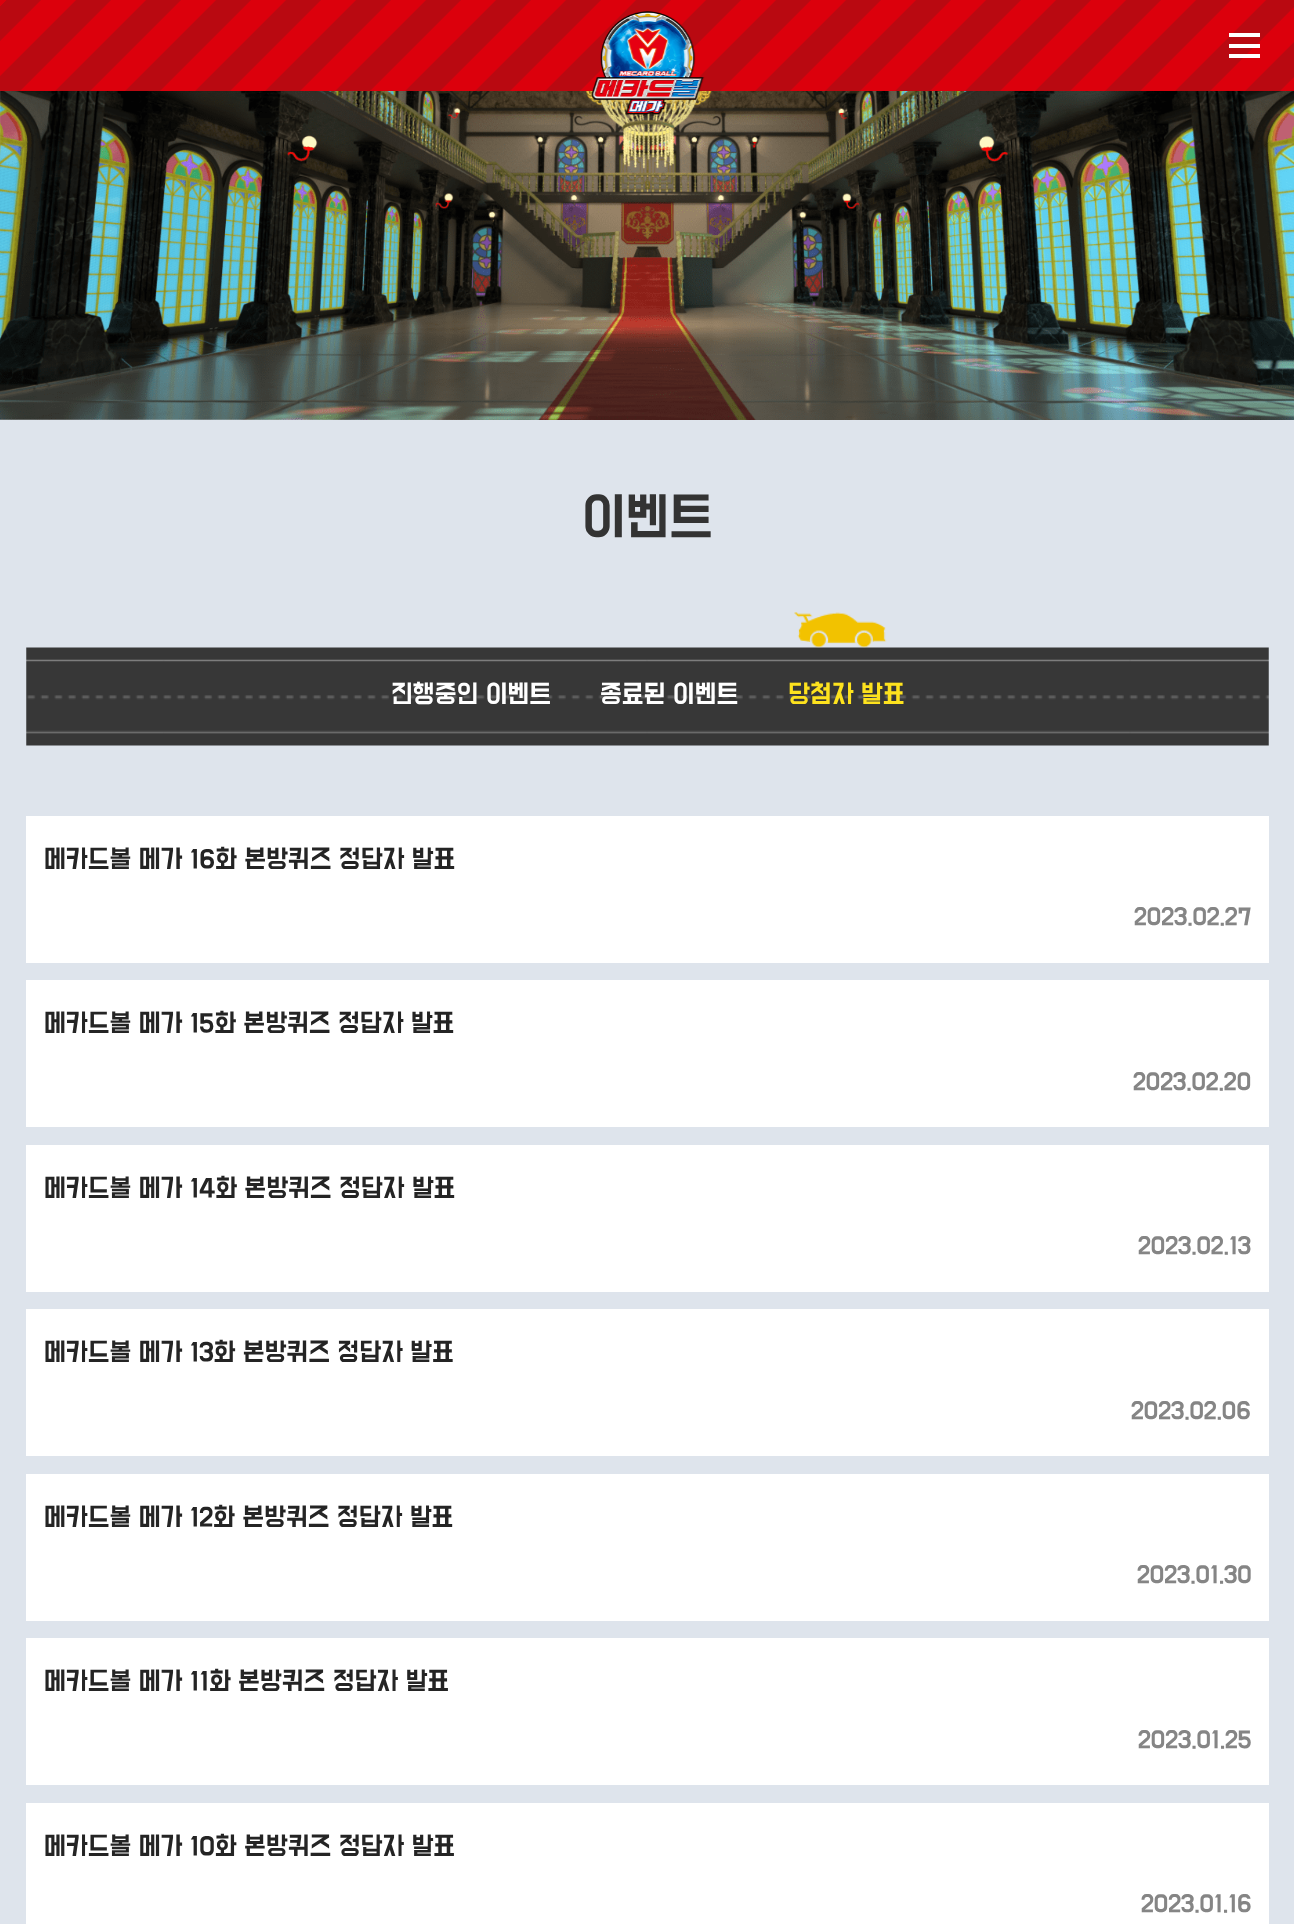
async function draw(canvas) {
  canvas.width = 1294
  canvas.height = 1924
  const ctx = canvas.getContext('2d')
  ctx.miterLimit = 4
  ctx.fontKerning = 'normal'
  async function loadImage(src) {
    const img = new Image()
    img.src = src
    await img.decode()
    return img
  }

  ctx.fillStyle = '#dee4ec'
  ctx.fillRect(0, 0, 1294, 1924)
  ctx.fillStyle = '#dc000c'
  ctx.fillRect(0, 0, 1294, 91)
  ctx.drawImage(await loadImage('image0.png'), 0, 0, 1294, 91)
  ctx.drawImage(await loadImage('image2.png'), 0, 91, 1294, 329)
  ctx.drawImage(await loadImage('image1.png'), 591, 11, 114, 104)
  ctx.fillStyle = '#fff'
  ctx.fillRect(1229, 33, 31, 4)
  ctx.fillRect(1229, 44, 31, 4)
  ctx.fillRect(1229, 54, 31, 4)
  ctx.font = '45.5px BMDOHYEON'
  ctx.fillStyle = '#333'
  ctx.fillText('이벤트', 582, 529)
  ctx.drawImage(await loadImage('image4.png'), 26, 647, 1243, 99)
  ctx.drawImage(await loadImage('image3.png'), 794, 612, 93, 36)
  ctx.font = '22.75px BMDOHYEON'
  ctx.fillStyle = '#fff'
  ctx.fillText('진행중인 이벤트', 391, 700)
  ctx.fillText('종료된 이벤트', 600, 700)
  ctx.fillStyle = '#fde21e'
  ctx.fillText('당첨자 발표', 788, 700)
  ctx.fillStyle = '#fff'
  ctx.fillRect(26, 816, 1243, 147)
  ctx.fillStyle = '#242424'
  ctx.fillText('메카드볼 메가 16화 본방퀴즈 정답자 발표', 44, 865)
  ctx.font = '21px BMDOHYEON'
  ctx.fillStyle = '#858585'
  ctx.fillText('2023.02.27', 1134, 922)
  ctx.fillStyle = '#fff'
  ctx.fillRect(26, 980, 1243, 147)
  ctx.font = '22.75px BMDOHYEON'
  ctx.fillStyle = '#242424'
  ctx.fillText('메카드볼 메가 15화 본방퀴즈 정답자 발표', 44, 1029)
  ctx.font = '21px BMDOHYEON'
  ctx.fillStyle = '#858585'
  ctx.fillText('2023.02.20', 1133, 1087)
  ctx.fillStyle = '#fff'
  ctx.fillRect(26, 1145, 1243, 147)
  ctx.font = '22.75px BMDOHYEON'
  ctx.fillStyle = '#242424'
  ctx.fillText('메카드볼 메가 14화 본방퀴즈 정답자 발표', 44, 1194)
  ctx.font = '21px BMDOHYEON'
  ctx.fillStyle = '#858585'
  ctx.fillText('2023.02.13', 1138, 1251)
  ctx.fillStyle = '#fff'
  ctx.fillRect(26, 1309, 1243, 147)
  ctx.font = '22.75px BMDOHYEON'
  ctx.fillStyle = '#242424'
  ctx.fillText('메카드볼 메가 13화 본방퀴즈 정답자 발표', 44, 1358)
  ctx.font = '21px BMDOHYEON'
  ctx.fillStyle = '#858585'
  ctx.fillText('2023.02.06', 1131, 1416)
  ctx.fillStyle = '#fff'
  ctx.fillRect(26, 1474, 1243, 147)
  ctx.font = '22.75px BMDOHYEON'
  ctx.fillStyle = '#242424'
  ctx.fillText('메카드볼 메가 12화 본방퀴즈 정답자 발표', 44, 1523)
  ctx.font = '21px BMDOHYEON'
  ctx.fillStyle = '#858585'
  ctx.fillText('2023.01.30', 1137, 1580)
  ctx.fillStyle = '#fff'
  ctx.fillRect(26, 1638, 1243, 147)
  ctx.font = '22.75px BMDOHYEON'
  ctx.fillStyle = '#242424'
  ctx.fillText('메카드볼 메가 11화 본방퀴즈 정답자 발표', 44, 1687)
  ctx.font = '21px BMDOHYEON'
  ctx.fillStyle = '#858585'
  ctx.fillText('2023.01.25', 1138, 1745)
  ctx.fillStyle = '#fff'
  ctx.fillRect(26, 1803, 1243, 121)
  ctx.font = '22.75px BMDOHYEON'
  ctx.fillStyle = '#242424'
  ctx.fillText('메카드볼 메가 10화 본방퀴즈 정답자 발표', 44, 1852)
  ctx.font = '21px BMDOHYEON'
  ctx.fillStyle = '#858585'
  ctx.fillText('2023.01.16', 1141, 1909)
}

draw(document.querySelector('canvas'))
